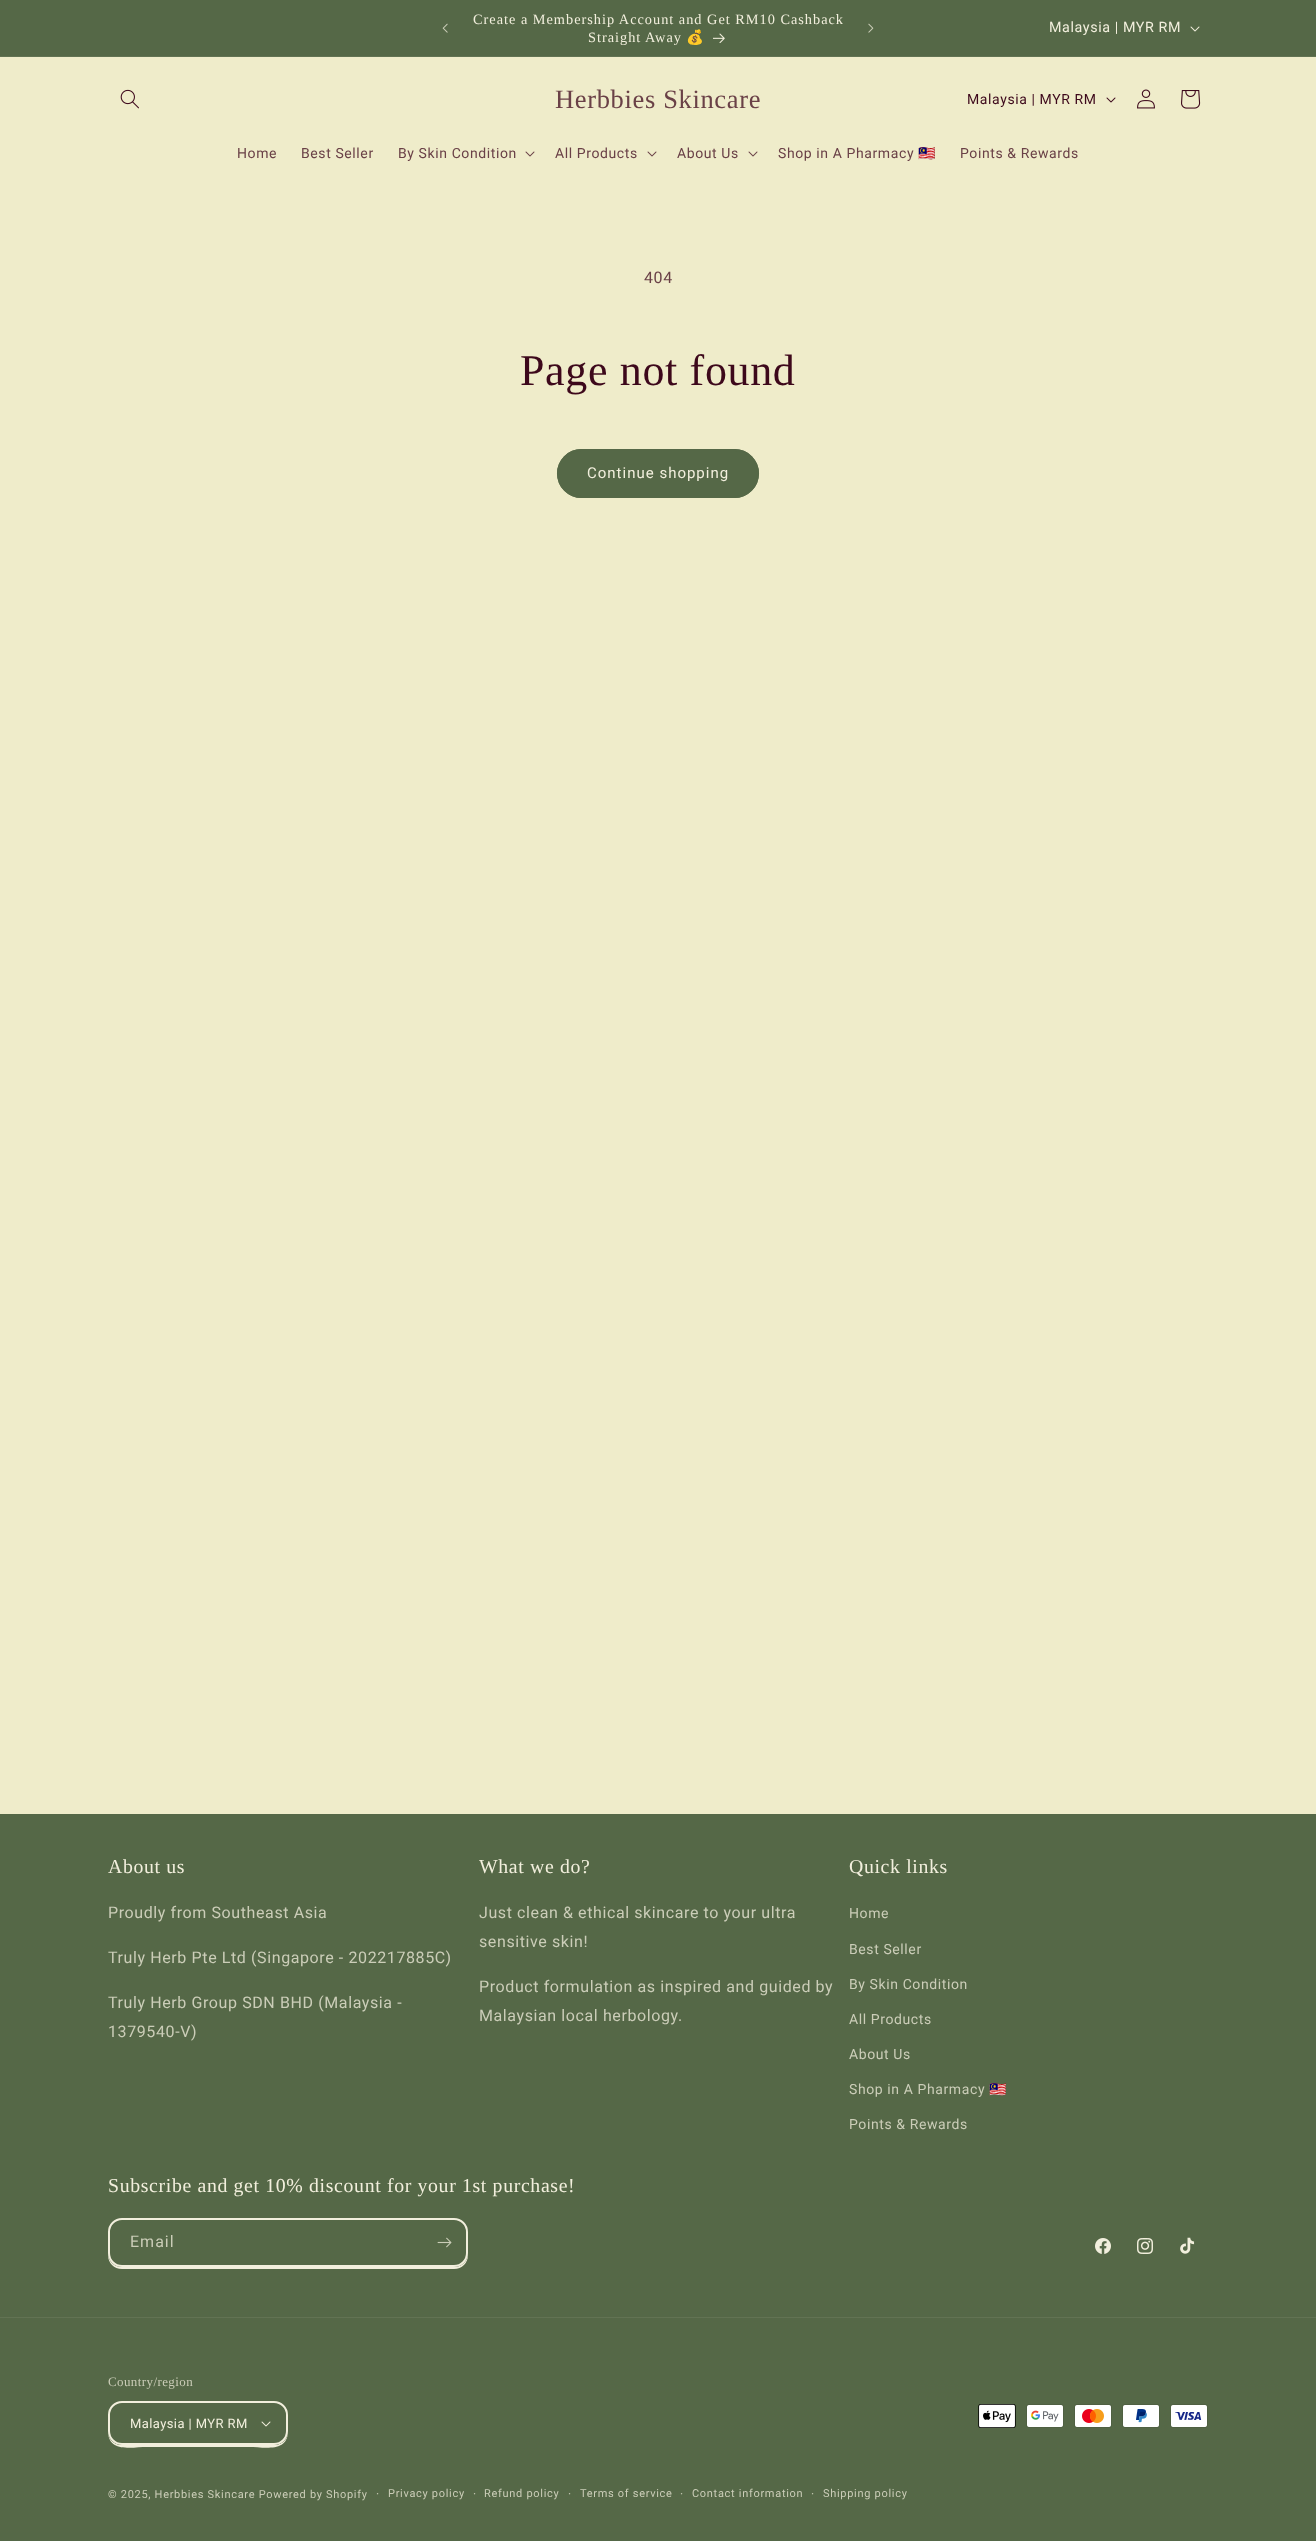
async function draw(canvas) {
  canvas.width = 1316
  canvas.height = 2541
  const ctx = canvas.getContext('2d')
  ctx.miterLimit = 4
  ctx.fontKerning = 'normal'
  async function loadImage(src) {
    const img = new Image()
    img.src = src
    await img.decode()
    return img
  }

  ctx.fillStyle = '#efecca'
  ctx.fillRect(0, 0, 1316, 2541)
  ctx.fillStyle = '#556847'
  ctx.fillRect(0, 0, 1316, 56)
  ctx.fillStyle = '#627353'
  ctx.fillRect(0, 56, 1316, 1)
  ctx.drawImage(await loadImage('image0.png'), 442, 23, 6, 10)
  ctx.letterSpacing = '1px'
  ctx.font = '14.3px Liberation Serif'
  ctx.fillStyle = '#f2efdd'
  ctx.fillText('Create a Membership Account and Get RM10 Cashback', 473, 24)
  ctx.fillText('Straight Away', 588, 42)
  ctx.font = '14.3px Noto Color Emoji'
  ctx.fillText('💰', 686, 42)
  ctx.drawImage(await loadImage('image1.png'), 713, 33, 12, 10)
  ctx.drawImage(await loadImage('image2.png'), 868, 23, 6, 10)
  ctx.letterSpacing = '0.6px'
  ctx.font = '14.3px Roboto'
  ctx.fillText('Malaysia | MYR RM', 1049, 32)
  ctx.drawImage(await loadImage('image3.png'), 1190, 26, 10, 6)
  ctx.drawImage(await loadImage('image4.png'), 120, 89, 19, 20)
  ctx.letterSpacing = '0.65px'
  ctx.font = '26.5px Liberation Serif'
  ctx.fillStyle = '#6a4147'
  ctx.fillText('Herbbies Skincare', 555, 108)
  ctx.letterSpacing = '0.6px'
  ctx.font = '14px Roboto'
  ctx.fillStyle = '#3d081b'
  ctx.fillText('Malaysia | MYR RM', 967, 104)
  ctx.drawImage(await loadImage('image5.png'), 1106, 97, 10, 6)
  ctx.drawImage(await loadImage('image6.png'), 1137, 89, 18, 20)
  ctx.drawImage(await loadImage('image7.png'), 1181, 90, 20, 19)
  ctx.fillStyle = '#6a4147'
  ctx.fillText('Home', 237, 158)
  ctx.fillText('Best Seller', 301, 158)
  ctx.fillText('By Skin Condition', 398, 158)
  ctx.drawImage(await loadImage('image8.png'), 525, 151, 10, 6)
  ctx.fillText('All Products', 555, 158)
  ctx.drawImage(await loadImage('image8.png'), 647, 151, 10, 6)
  ctx.fillText('About Us', 677, 158)
  ctx.drawImage(await loadImage('image8.png'), 748, 151, 10, 6)
  ctx.fillText('Shop in A Pharmacy', 778, 158)
  ctx.font = '14px Noto Color Emoji'
  ctx.fillText('🇲🇾', 918, 158)
  ctx.font = '14px Roboto'
  ctx.fillText('Points & Rewards', 960, 158)
  ctx.font = '16px Roboto'
  ctx.fillText('404', 644, 283)
  ctx.letterSpacing = '0.65px'
  ctx.font = '44px Liberation Serif'
  ctx.fillStyle = '#3d081b'
  ctx.fillText('Page not found', 520, 385)
  ctx.fillStyle = '#556847'
  ctx.beginPath()
  ctx.roundRect(557, 449, 202, 49, 24.5)
  ctx.fill()
  ctx.beginPath()
  ctx.roundRect(558, 450, 200, 47, 23.5)
  ctx.strokeStyle = '#556847'
  ctx.lineWidth = 2
  ctx.stroke()
  ctx.letterSpacing = '1px'
  ctx.font = '15px Roboto'
  ctx.fillStyle = '#f2efdd'
  ctx.fillText('Continue shopping', 587, 478)
  ctx.fillStyle = '#556847'
  ctx.fillRect(0, 1814, 1316, 727)
  ctx.letterSpacing = '0.65px'
  ctx.font = '19.8px Liberation Serif'
  ctx.fillStyle = '#f2efdd'
  ctx.fillText('About us', 108, 1873)
  ctx.letterSpacing = '0.6px'
  ctx.font = '16px Roboto'
  ctx.fillStyle = '#cbcdb8'
  ctx.fillText('Proudly from Southeast Asia', 108, 1918)
  ctx.fillText('Truly Herb Pte Ltd (Singapore - 202217885C)', 108, 1963)
  ctx.fillText('Truly Herb Group SDN BHD (Malaysia -', 108, 2008)
  ctx.fillText('1379540-V)', 108, 2037)
  ctx.letterSpacing = '0.65px'
  ctx.font = '19.8px Liberation Serif'
  ctx.fillStyle = '#f2efdd'
  ctx.fillText('What we do?', 479, 1873)
  ctx.letterSpacing = '0.6px'
  ctx.font = '16px Roboto'
  ctx.fillStyle = '#cbcdb8'
  ctx.fillText('Just clean & ethical skincare to your ultra', 479, 1918)
  ctx.fillText('sensitive skin!', 479, 1947)
  ctx.fillText('Product formulation as inspired and guided by', 479, 1992)
  ctx.fillText('Malaysian local herbology.', 479, 2021)
  ctx.letterSpacing = '0.65px'
  ctx.font = '19.8px Liberation Serif'
  ctx.fillStyle = '#f2efdd'
  ctx.fillText('Quick links', 849, 1873)
  ctx.letterSpacing = '0.6px'
  ctx.font = '14px Roboto'
  ctx.fillStyle = '#cbcdb8'
  ctx.fillText('Home', 849, 1918)
  ctx.fillText('Best Seller', 849, 1954)
  ctx.fillText('By Skin Condition', 849, 1989)
  ctx.fillText('All Products', 849, 2024)
  ctx.fillText('About Us', 849, 2059)
  ctx.fillText('Shop in A Pharmacy', 849, 2094)
  ctx.font = '14px Noto Color Emoji'
  ctx.fillText('🇲🇾', 989, 2094)
  ctx.font = '14px Roboto'
  ctx.fillText('Points & Rewards', 849, 2129)
  ctx.letterSpacing = '0.65px'
  ctx.font = '19.8px Liberation Serif'
  ctx.fillStyle = '#f2efdd'
  ctx.fillText('Subscribe and get 10% discount for your 1st purchase!', 108, 2192)
  ctx.beginPath()
  ctx.moveTo(108, 2253)
  ctx.lineTo(108, 2255)
  ctx.bezierCurveTo(108, 2263, 114, 2269, 122, 2269)
  ctx.lineTo(454, 2269)
  ctx.bezierCurveTo(462, 2269, 468, 2263, 468, 2255)
  ctx.lineTo(468, 2253)
  ctx.bezierCurveTo(468, 2261, 462, 2267, 454, 2267)
  ctx.lineTo(122, 2267)
  ctx.bezierCurveTo(114, 2267, 108, 2261, 108, 2253)
  ctx.closePath()
  ctx.fill()
  ctx.beginPath()
  ctx.roundRect(109, 2219, 358, 47, 13)
  ctx.strokeStyle = '#f2efdd'
  ctx.stroke()
  ctx.letterSpacing = '1px'
  ctx.font = '16px Roboto'
  ctx.fillStyle = '#cbcdb8'
  ctx.fillText('Email', 130, 2247)
  ctx.drawImage(await loadImage('image9.png'), 437, 2237, 15, 11)
  ctx.drawImage(await loadImage('image10.png'), 1095, 2238, 16, 16)
  ctx.drawImage(await loadImage('image11.png'), 1137, 2238, 16, 16)
  ctx.drawImage(await loadImage('image12.png'), 1180, 2237, 15, 17)
  ctx.fillStyle = '#627353'
  ctx.fillRect(0, 2317, 1316, 1)
  ctx.letterSpacing = '0.4px'
  ctx.font = '13px Liberation Serif'
  ctx.fillStyle = '#cbcdb8'
  ctx.fillText('Country/region', 108, 2386)
  ctx.fillStyle = '#f2efdd'
  ctx.beginPath()
  ctx.moveTo(108, 2431)
  ctx.bezierCurveTo(108, 2453, 132, 2447, 147, 2447)
  ctx.lineTo(249, 2447)
  ctx.bezierCurveTo(264, 2447, 288, 2453, 288, 2431)
  ctx.bezierCurveTo(288, 2439, 282, 2445, 274, 2445)
  ctx.lineTo(122, 2445)
  ctx.bezierCurveTo(114, 2445, 108, 2439, 108, 2431)
  ctx.closePath()
  ctx.fill()
  ctx.fillStyle = '#556847'
  ctx.beginPath()
  ctx.roundRect(108, 2401, 180, 44, 14)
  ctx.fill()
  ctx.drawImage(await loadImage('image3.png'), 261, 2421, 10, 6)
  ctx.beginPath()
  ctx.roundRect(109, 2402, 178, 42, 13)
  ctx.stroke()
  ctx.font = '13px Roboto'
  ctx.fillStyle = '#f2efdd'
  ctx.fillText('Malaysia | MYR RM', 130, 2428)
  ctx.drawImage(await loadImage('image13.png'), 978, 2404, 38, 24)
  ctx.drawImage(await loadImage('image14.png'), 1026, 2404, 38, 24)
  ctx.drawImage(await loadImage('image15.png'), 1074, 2404, 38, 24)
  ctx.drawImage(await loadImage('image16.png'), 1122, 2404, 38, 24)
  ctx.drawImage(await loadImage('image17.png'), 1170, 2404, 38, 24)
  ctx.letterSpacing = '0.7px'
  ctx.font = '11px Roboto'
  ctx.fillStyle = '#cbcdb8'
  ctx.fillText('© 2025, Herbbies Skincare Powered by Shopify', 108, 2498)
  ctx.font = '12px Roboto'
  ctx.fillText('·', 376, 2498)
  ctx.font = '11px Roboto'
  ctx.fillText('Privacy policy', 388, 2497)
  ctx.font = '12px Roboto'
  ctx.fillText('·', 473, 2498)
  ctx.font = '11px Roboto'
  ctx.fillText('Refund policy', 484, 2497)
  ctx.font = '12px Roboto'
  ctx.fillText('·', 568, 2498)
  ctx.font = '11px Roboto'
  ctx.fillText('Terms of service', 580, 2497)
  ctx.font = '12px Roboto'
  ctx.fillText('·', 680, 2498)
  ctx.font = '11px Roboto'
  ctx.fillText('Contact information', 692, 2497)
  ctx.font = '12px Roboto'
  ctx.fillText('·', 811, 2498)
  ctx.font = '11px Roboto'
  ctx.fillText('Shipping policy', 823, 2497)
}

draw(document.querySelector('canvas'))
